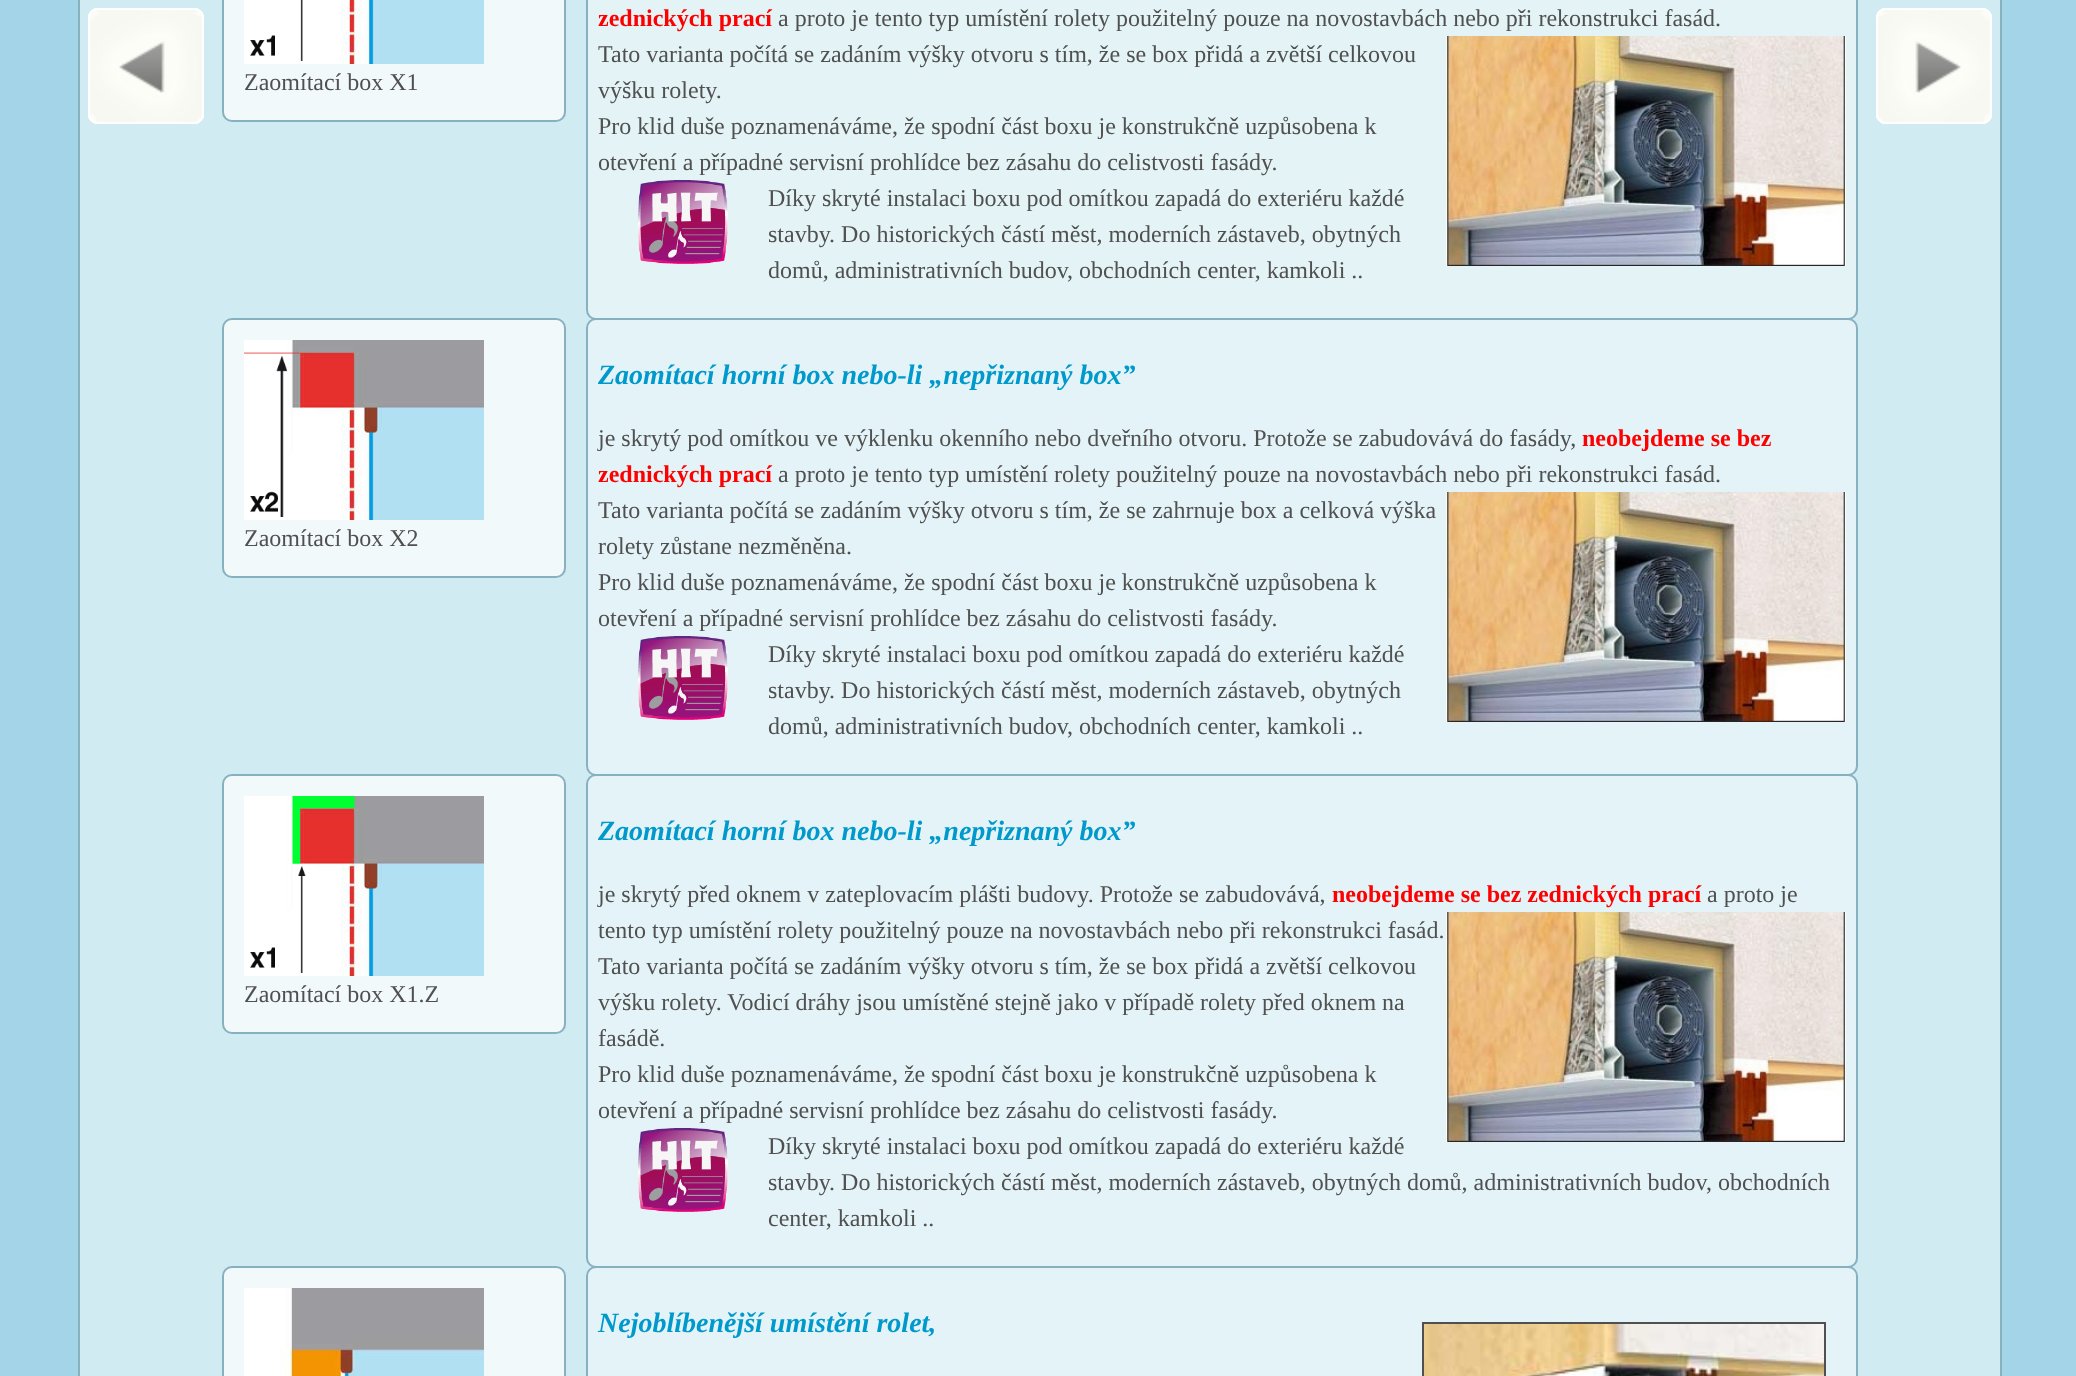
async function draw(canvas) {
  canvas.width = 2076
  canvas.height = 1376
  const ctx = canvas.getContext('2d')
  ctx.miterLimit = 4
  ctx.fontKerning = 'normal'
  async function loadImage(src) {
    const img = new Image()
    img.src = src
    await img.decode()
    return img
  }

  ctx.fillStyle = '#a4d4e8'
  ctx.fillRect(0, 0, 2076, 1376)
  ctx.fillStyle = '#d0ebf2'
  ctx.beginPath()
  ctx.rect(79, -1, 1922, 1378)
  ctx.fill()
  ctx.strokeStyle = '#87b1c0'
  ctx.lineWidth = 2
  ctx.stroke()
  ctx.drawImage(await loadImage('image0.png'), 90, 10, 114, 112)
  ctx.beginPath()
  ctx.roundRect(89, 9, 114, 114, 9)
  ctx.strokeStyle = '#fff'
  ctx.stroke()
  ctx.drawImage(await loadImage('image1.png'), 1876, 10, 116, 112)
  ctx.beginPath()
  ctx.roundRect(1877, 9, 114, 114, 9)
  ctx.stroke()
  ctx.drawImage(await loadImage('image2.png'), 90, 10, 114, 112)
  ctx.beginPath()
  ctx.roundRect(89, 9, 114, 114, 9)
  ctx.stroke()
  ctx.drawImage(await loadImage('image3.png'), 1876, 10, 116, 112)
  ctx.beginPath()
  ctx.roundRect(1877, 9, 114, 114, 9)
  ctx.stroke()
  ctx.drawImage(await loadImage('image4.png'), 90, 10, 114, 112)
  ctx.beginPath()
  ctx.roundRect(89, 9, 114, 114, 9)
  ctx.stroke()
  ctx.drawImage(await loadImage('image5.png'), 1876, 10, 116, 112)
  ctx.beginPath()
  ctx.roundRect(1877, 9, 114, 114, 9)
  ctx.stroke()
  ctx.drawImage(await loadImage('image6.png'), 90, 10, 114, 112)
  ctx.beginPath()
  ctx.roundRect(89, 9, 114, 114, 9)
  ctx.stroke()
  ctx.drawImage(await loadImage('image7.png'), 1876, 10, 116, 112)
  ctx.beginPath()
  ctx.roundRect(1877, 9, 114, 114, 9)
  ctx.stroke()
  ctx.drawImage(await loadImage('image8.png'), 90, 10, 114, 112)
  ctx.beginPath()
  ctx.roundRect(89, 9, 114, 114, 9)
  ctx.stroke()
  ctx.drawImage(await loadImage('image9.png'), 1876, 10, 116, 112)
  ctx.beginPath()
  ctx.roundRect(1877, 9, 114, 114, 9)
  ctx.stroke()
  ctx.drawImage(await loadImage('image10.png'), 90, 10, 114, 112)
  ctx.beginPath()
  ctx.roundRect(89, 9, 114, 114, 9)
  ctx.stroke()
  ctx.drawImage(await loadImage('image11.png'), 1876, 10, 116, 112)
  ctx.beginPath()
  ctx.roundRect(1877, 9, 114, 114, 9)
  ctx.stroke()
  ctx.drawImage(await loadImage('image12.png'), 90, 10, 114, 112)
  ctx.beginPath()
  ctx.roundRect(89, 9, 114, 114, 9)
  ctx.stroke()
  ctx.drawImage(await loadImage('image13.png'), 1876, 10, 116, 112)
  ctx.beginPath()
  ctx.roundRect(1877, 9, 114, 114, 9)
  ctx.stroke()
  ctx.drawImage(await loadImage('image14.png'), 90, 10, 114, 112)
  ctx.beginPath()
  ctx.roundRect(89, 9, 114, 114, 9)
  ctx.stroke()
  ctx.drawImage(await loadImage('image15.png'), 1876, 10, 116, 112)
  ctx.beginPath()
  ctx.roundRect(1877, 9, 114, 114, 9)
  ctx.stroke()
  ctx.drawImage(await loadImage('image16.png'), 90, 10, 114, 112)
  ctx.beginPath()
  ctx.roundRect(89, 9, 114, 114, 9)
  ctx.stroke()
  ctx.drawImage(await loadImage('image17.png'), 1876, 10, 116, 112)
  ctx.beginPath()
  ctx.roundRect(1877, 9, 114, 114, 9)
  ctx.stroke()
  ctx.drawImage(await loadImage('image18.png'), 90, 10, 114, 112)
  ctx.beginPath()
  ctx.roundRect(89, 9, 114, 114, 9)
  ctx.stroke()
  ctx.drawImage(await loadImage('image19.png'), 1876, 10, 116, 112)
  ctx.beginPath()
  ctx.roundRect(1877, 9, 114, 114, 9)
  ctx.stroke()
  ctx.drawImage(await loadImage('image20.png'), 90, 10, 114, 112)
  ctx.beginPath()
  ctx.roundRect(89, 9, 114, 114, 9)
  ctx.stroke()
  ctx.drawImage(await loadImage('image21.png'), 1876, 10, 116, 112)
  ctx.beginPath()
  ctx.roundRect(1877, 9, 114, 114, 9)
  ctx.stroke()
  ctx.drawImage(await loadImage('image22.png'), 90, 10, 114, 112)
  ctx.beginPath()
  ctx.roundRect(89, 9, 114, 114, 9)
  ctx.stroke()
  ctx.drawImage(await loadImage('image23.png'), 1876, 10, 116, 112)
  ctx.beginPath()
  ctx.roundRect(1877, 9, 114, 114, 9)
  ctx.stroke()
  ctx.drawImage(await loadImage('image24.png'), 90, 10, 114, 112)
  ctx.beginPath()
  ctx.roundRect(89, 9, 114, 114, 9)
  ctx.stroke()
  ctx.drawImage(await loadImage('image25.png'), 1876, 10, 116, 112)
  ctx.beginPath()
  ctx.roundRect(1877, 9, 114, 114, 9)
  ctx.stroke()
  ctx.drawImage(await loadImage('image26.png'), 90, 10, 114, 112)
  ctx.beginPath()
  ctx.roundRect(89, 9, 114, 114, 9)
  ctx.stroke()
  ctx.drawImage(await loadImage('image27.png'), 1876, 10, 116, 112)
  ctx.beginPath()
  ctx.roundRect(1877, 9, 114, 114, 9)
  ctx.stroke()
  ctx.drawImage(await loadImage('image28.png'), 90, 10, 114, 112)
  ctx.beginPath()
  ctx.roundRect(89, 9, 114, 114, 9)
  ctx.stroke()
  ctx.drawImage(await loadImage('image29.png'), 1876, 10, 116, 112)
  ctx.beginPath()
  ctx.roundRect(1877, 9, 114, 114, 9)
  ctx.stroke()
  ctx.drawImage(await loadImage('image30.png'), 90, 10, 114, 112)
  ctx.beginPath()
  ctx.roundRect(89, 9, 114, 114, 9)
  ctx.stroke()
  ctx.drawImage(await loadImage('image31.png'), 1876, 10, 116, 112)
  ctx.beginPath()
  ctx.roundRect(1877, 9, 114, 114, 9)
  ctx.stroke()
  ctx.drawImage(await loadImage('image32.png'), 90, 10, 114, 112)
  ctx.beginPath()
  ctx.roundRect(89, 9, 114, 114, 9)
  ctx.stroke()
  ctx.drawImage(await loadImage('image33.png'), 1876, 10, 116, 112)
  ctx.beginPath()
  ctx.roundRect(1877, 9, 114, 114, 9)
  ctx.stroke()
  ctx.drawImage(await loadImage('image34.png'), 90, 10, 114, 112)
  ctx.beginPath()
  ctx.roundRect(89, 9, 114, 114, 9)
  ctx.stroke()
  ctx.drawImage(await loadImage('image35.png'), 1876, 10, 116, 112)
  ctx.beginPath()
  ctx.roundRect(1877, 9, 114, 114, 9)
  ctx.stroke()
  ctx.drawImage(await loadImage('image42.png'), 90, 10, 114, 112)
  ctx.beginPath()
  ctx.roundRect(89, 9, 114, 114, 9)
  ctx.stroke()
  ctx.drawImage(await loadImage('image36.png'), 90, 10, 114, 112)
  ctx.beginPath()
  ctx.roundRect(89, 9, 114, 114, 9)
  ctx.stroke()
  ctx.drawImage(await loadImage('image43.png'), 1876, 10, 116, 112)
  ctx.beginPath()
  ctx.roundRect(1877, 9, 114, 114, 9)
  ctx.stroke()
  ctx.drawImage(await loadImage('image37.png'), 1876, 10, 116, 112)
  ctx.beginPath()
  ctx.roundRect(1877, 9, 114, 114, 9)
  ctx.stroke()
  ctx.drawImage(await loadImage('image38.png'), 90, 10, 114, 112)
  ctx.beginPath()
  ctx.roundRect(89, 9, 114, 114, 9)
  ctx.stroke()
  ctx.drawImage(await loadImage('image39.png'), 1876, 10, 116, 112)
  ctx.beginPath()
  ctx.roundRect(1877, 9, 114, 114, 9)
  ctx.stroke()
  ctx.fillStyle = '#fafcf0'
  ctx.beginPath()
  ctx.roundRect(88, 8, 116, 116, 10)
  ctx.fill()
  ctx.drawImage(await loadImage('image40.png'), 90, 10, 114, 112)
  ctx.beginPath()
  ctx.roundRect(89, 9, 114, 114, 9)
  ctx.stroke()
  ctx.beginPath()
  ctx.roundRect(1876, 8, 116, 116, 10)
  ctx.fill()
  ctx.drawImage(await loadImage('image41.png'), 1876, 10, 116, 112)
  ctx.beginPath()
  ctx.roundRect(1877, 9, 114, 114, 9)
  ctx.stroke()
  ctx.fillStyle = '#f1f9fb'
  ctx.beginPath()
  ctx.roundRect(223, -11, 342, 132, 9)
  ctx.fill()
  ctx.strokeStyle = '#87b1c0'
  ctx.stroke()
  ctx.drawImage(await loadImage('image44.png'), 244, 0, 240, 64)
  ctx.font = '24px Liberation Serif'
  ctx.fillStyle = '#505050'
  ctx.fillText('Zaomítací box X1', 244, 90)
  ctx.fillStyle = '#e3f3f6'
  ctx.beginPath()
  ctx.roundRect(587, -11, 1270, 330, 9)
  ctx.fill()
  ctx.stroke()
  ctx.font = 'bold 24px Liberation Serif'
  ctx.fillStyle = '#f00'
  ctx.fillText('zednických prací', 598, 26)
  ctx.font = '24px Liberation Serif'
  ctx.fillStyle = '#505050'
  ctx.fillText('a proto je tento typ umístění rolety použitelný pouze na novostavbách nebo při rekonstrukci fasád.', 778, 26)
  ctx.fillText('Tato varianta počítá se zadáním výšky otvoru s tím, že se box přidá a zvětší celkovou', 598, 62)
  ctx.drawImage(await loadImage('image45.png'), 1446, 36, 400, 230)
  ctx.fillText('výšku rolety.', 598, 98)
  ctx.fillText('Pro klid duše poznamenáváme, že spodní část boxu je konstrukčně uzpůsobena k', 598, 134)
  ctx.fillText('otevření a případné servisní prohlídce bez zásahu do celistvosti fasády.', 598, 170)
  ctx.drawImage(await loadImage('image46.png'), 638, 180, 90, 84)
  ctx.fillText('Díky skryté instalaci boxu pod omítkou zapadá do exteriéru každé', 768, 206)
  ctx.fillText('stavby. Do historických částí měst, moderních zástaveb, obytných', 768, 242)
  ctx.fillText('domů, administrativních budov, obchodních center, kamkoli ..', 768, 278)
  ctx.fillStyle = '#f1f9fb'
  ctx.beginPath()
  ctx.roundRect(223, 319, 342, 258, 9)
  ctx.fill()
  ctx.stroke()
  ctx.drawImage(await loadImage('image47.png'), 244, 340, 240, 180)
  ctx.fillStyle = '#505050'
  ctx.fillText('Zaomítací box X2', 244, 546)
  ctx.fillStyle = '#ffffff66'
  ctx.beginPath()
  ctx.roundRect(587, 319, 1270, 456, 9)
  ctx.fill()
  ctx.stroke()
  ctx.font = 'italic bold 28px Liberation Serif'
  ctx.fillStyle = '#09c'
  ctx.fillText('Zaomítací horní box nebo-li „nepřiznaný box”', 598, 384)
  ctx.font = '24px Liberation Serif'
  ctx.fillStyle = '#505050'
  ctx.fillText('je skrytý pod omítkou ve výklenku okenního nebo dveřního otvoru. Protože se zabudovává do fasády,', 598, 446)
  ctx.font = 'bold 24px Liberation Serif'
  ctx.fillStyle = '#f00'
  ctx.fillText('neobejdeme se bez', 1582, 446)
  ctx.fillText('zednických prací', 598, 482)
  ctx.font = '24px Liberation Serif'
  ctx.fillStyle = '#505050'
  ctx.fillText('a proto je tento typ umístění rolety použitelný pouze na novostavbách nebo při rekonstrukci fasád.', 778, 482)
  ctx.fillText('Tato varianta počítá se zadáním výšky otvoru s tím, že se zahrnuje box a celková výška', 598, 518)
  ctx.drawImage(await loadImage('image48.png'), 1446, 492, 400, 230)
  ctx.fillText('rolety zůstane nezměněna.', 598, 554)
  ctx.fillText('Pro klid duše poznamenáváme, že spodní část boxu je konstrukčně uzpůsobena k', 598, 590)
  ctx.fillText('otevření a případné servisní prohlídce bez zásahu do celistvosti fasády.', 598, 626)
  ctx.drawImage(await loadImage('image49.png'), 638, 636, 90, 84)
  ctx.fillText('Díky skryté instalaci boxu pod omítkou zapadá do exteriéru každé', 768, 662)
  ctx.fillText('stavby. Do historických částí měst, moderních zástaveb, obytných', 768, 698)
  ctx.fillText('domů, administrativních budov, obchodních center, kamkoli ..', 768, 734)
  ctx.fillStyle = '#f1f9fb'
  ctx.beginPath()
  ctx.roundRect(223, 775, 342, 258, 9)
  ctx.fill()
  ctx.stroke()
  ctx.drawImage(await loadImage('image50.png'), 244, 796, 240, 180)
  ctx.fillStyle = '#505050'
  ctx.fillText('Zaomítací box X1.Z', 244, 1002)
  ctx.fillStyle = '#ffffff66'
  ctx.beginPath()
  ctx.roundRect(587, 775, 1270, 492, 9)
  ctx.fill()
  ctx.stroke()
  ctx.font = 'italic bold 28px Liberation Serif'
  ctx.fillStyle = '#09c'
  ctx.fillText('Zaomítací horní box nebo-li „nepřiznaný box”', 598, 840)
  ctx.font = '24px Liberation Serif'
  ctx.fillStyle = '#505050'
  ctx.fillText('je skrytý před oknem v zateplovacím plášti budovy. Protože se zabudovává,', 598, 902)
  ctx.font = 'bold 24px Liberation Serif'
  ctx.fillStyle = '#f00'
  ctx.fillText('neobejdeme se bez zednických prací', 1332, 902)
  ctx.font = '24px Liberation Serif'
  ctx.fillStyle = '#505050'
  ctx.fillText('a proto je', 1707, 902)
  ctx.fillText('tento typ umístění rolety použitelný pouze na novostavbách nebo při rekonstrukci fasád.', 598, 938)
  ctx.drawImage(await loadImage('image45.png'), 1446, 912, 400, 230)
  ctx.fillText('Tato varianta počítá se zadáním výšky otvoru s tím, že se box přidá a zvětší celkovou', 598, 974)
  ctx.fillText('výšku rolety. Vodicí dráhy jsou umístěné stejně jako v případě rolety před oknem na', 598, 1010)
  ctx.fillText('fasádě.', 598, 1046)
  ctx.fillText('Pro klid duše poznamenáváme, že spodní část boxu je konstrukčně uzpůsobena k', 598, 1082)
  ctx.fillText('otevření a případné servisní prohlídce bez zásahu do celistvosti fasády.', 598, 1118)
  ctx.drawImage(await loadImage('image51.png'), 638, 1128, 90, 84)
  ctx.fillText('Díky skryté instalaci boxu pod omítkou zapadá do exteriéru každé', 768, 1154)
  ctx.fillText('stavby. Do historických částí měst, moderních zástaveb, obytných domů, administrativních budov, obchodních', 768, 1190)
  ctx.fillText('center, kamkoli ..', 768, 1226)
  ctx.fillStyle = '#f1f9fb'
  ctx.beginPath()
  ctx.roundRect(223, 1267, 342, 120, 9)
  ctx.fill()
  ctx.stroke()
  ctx.drawImage(await loadImage('image52.png'), 244, 1288, 240, 88)
  ctx.fillStyle = '#ffffff66'
  ctx.beginPath()
  ctx.roundRect(587, 1267, 1270, 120, 9)
  ctx.fill()
  ctx.stroke()
  ctx.font = 'italic bold 28px Liberation Serif'
  ctx.fillStyle = '#09c'
  ctx.fillText('Nejoblíbenější umístění rolet,', 598, 1332)
  ctx.strokeStyle = '#505050'
  ctx.strokeRect(1423, 1323, 402, 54)
  ctx.drawImage(await loadImage('image53.png'), 1424, 1324, 400, 52)
}

draw(document.querySelector('canvas'))
